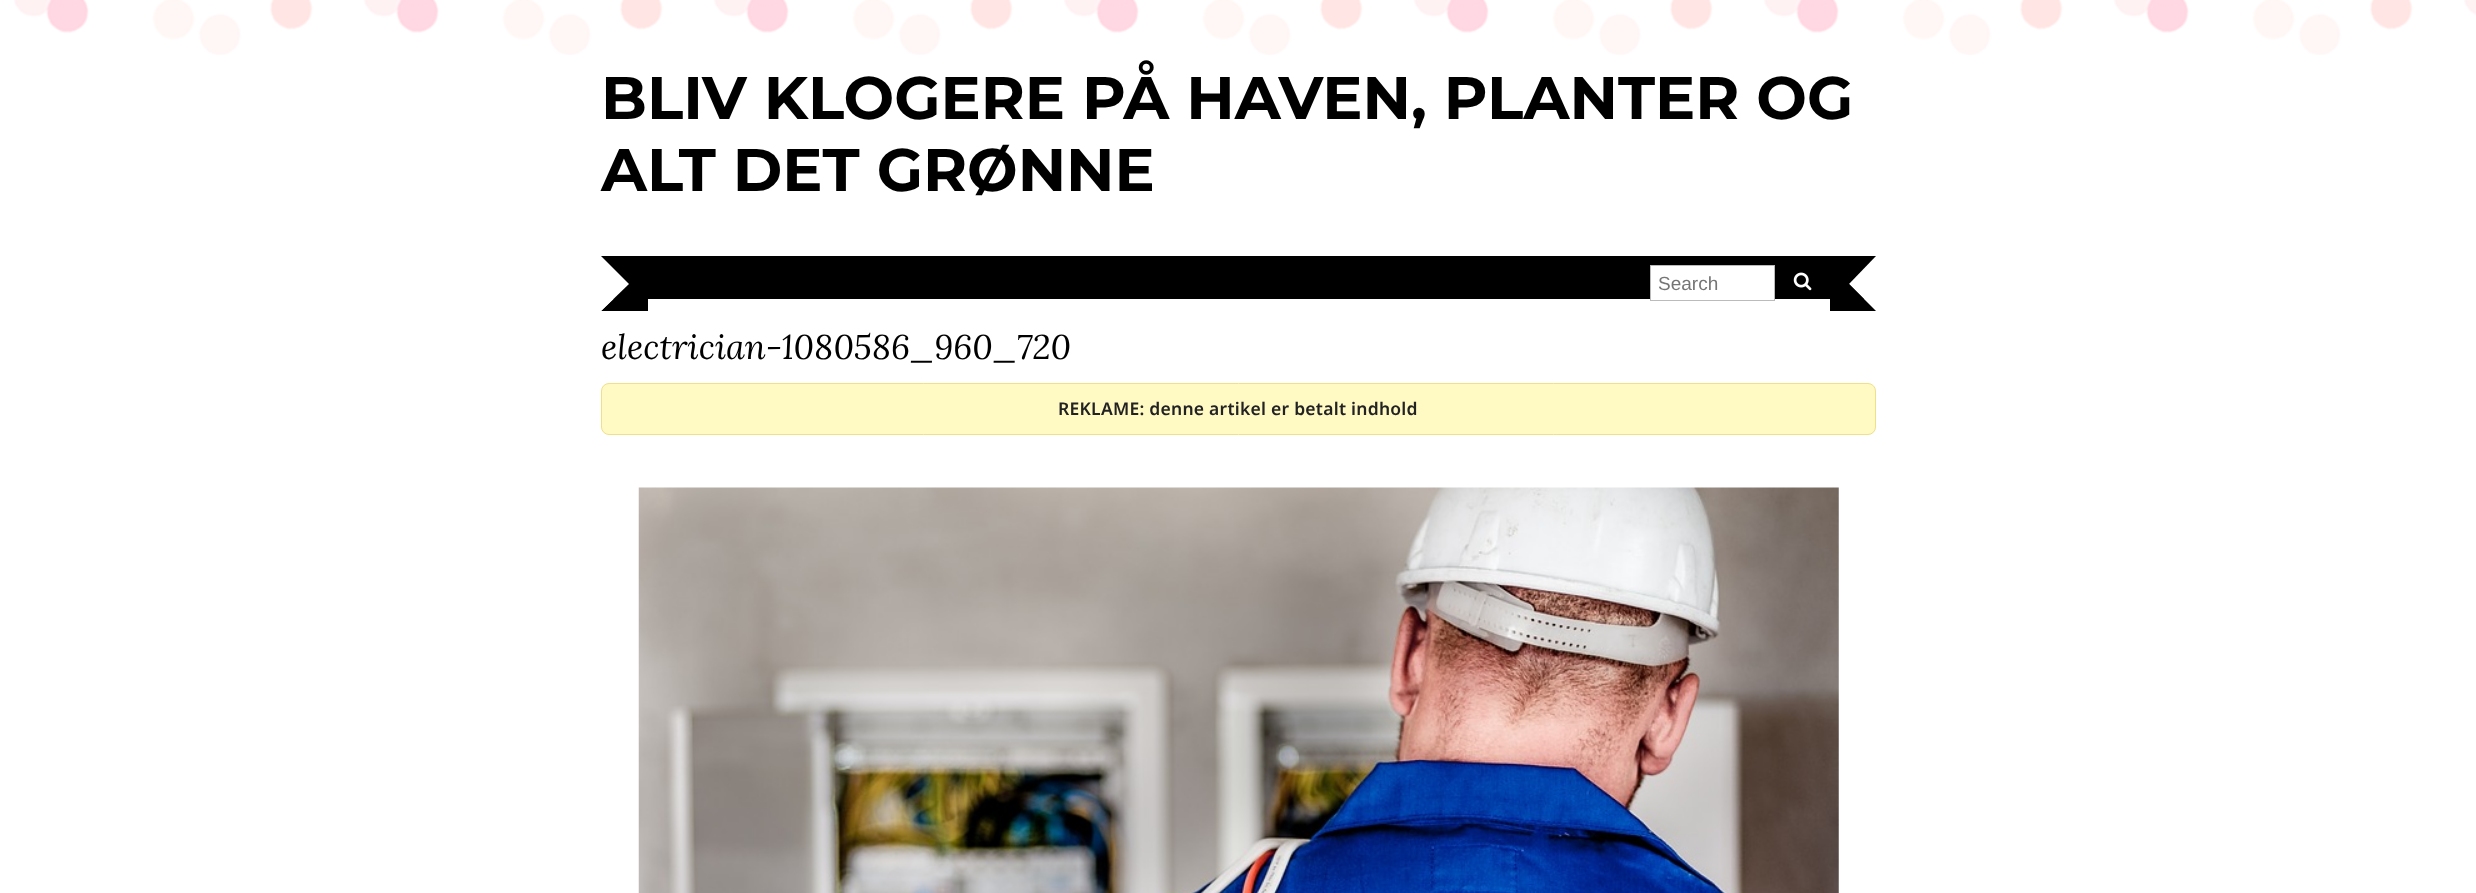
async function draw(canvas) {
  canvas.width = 2476
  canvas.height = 893
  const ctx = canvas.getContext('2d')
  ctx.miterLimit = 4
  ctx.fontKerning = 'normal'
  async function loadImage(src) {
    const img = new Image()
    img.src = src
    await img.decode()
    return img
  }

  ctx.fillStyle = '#fff'
  ctx.fillRect(0, 0, 2476, 893)
  ctx.drawImage(await loadImage('image0.png'), 14, 0, 2462, 55)
  ctx.font = 'bold 60px Montserrat'
  ctx.fillStyle = '#000'
  ctx.fillText('BLIV KLOGERE PÅ HAVEN, PLANTER OG', 601, 119)
  ctx.fillText('ALT DET GRØNNE', 601, 191)
  ctx.fillRect(601, 256, 1275, 43)
  ctx.fillRect(629, 299, 19, 12)
  ctx.beginPath()
  ctx.moveTo(648, 311)
  ctx.lineTo(601, 311)
  ctx.lineTo(629, 284)
  ctx.closePath()
  ctx.fill()
  ctx.fillStyle = '#fff'
  ctx.beginPath()
  ctx.moveTo(601, 311)
  ctx.lineTo(601, 256)
  ctx.lineTo(629, 284)
  ctx.closePath()
  ctx.fill()
  ctx.fillRect(1651, 266, 123, 33)
  ctx.strokeStyle = '#bbb'
  ctx.strokeRect(1650.5, 265.5, 124, 35)
  ctx.font = '19px Liberation Sans'
  ctx.fillStyle = '#757575'
  ctx.fillText('Search', 1658, 290)
  ctx.drawImage(await loadImage('image1.png'), 1793, 272, 19, 19)
  ctx.fillStyle = '#fff'
  ctx.beginPath()
  ctx.moveTo(1876, 256)
  ctx.lineTo(1876, 311)
  ctx.lineTo(1849, 284)
  ctx.closePath()
  ctx.fill()
  ctx.fillStyle = '#000'
  ctx.beginPath()
  ctx.moveTo(1876, 311)
  ctx.lineTo(1830, 311)
  ctx.lineTo(1849, 284)
  ctx.closePath()
  ctx.fill()
  ctx.fillRect(1830, 299, 9, 12)
  ctx.font = 'italic 34.25px Lora'
  ctx.fillText('electrician-1080586_960_720', 601, 359)
  ctx.fillStyle = '#fff9c4'
  ctx.beginPath()
  ctx.roundRect(601.5, 383.5, 1274, 51, 7.5)
  ctx.fill()
  ctx.strokeStyle = '#f0e08a'
  ctx.stroke()
  ctx.letterSpacing = '0.25px'
  ctx.font = '600 17.5px Noto Sans'
  ctx.fillStyle = '#222'
  ctx.fillText('REKLAME: denne artikel er betalt indhold', 1058, 415)
  ctx.drawImage(await loadImage('image2.png'), 638, 487, 1201, 406)
}

draw(document.querySelector('canvas'))
